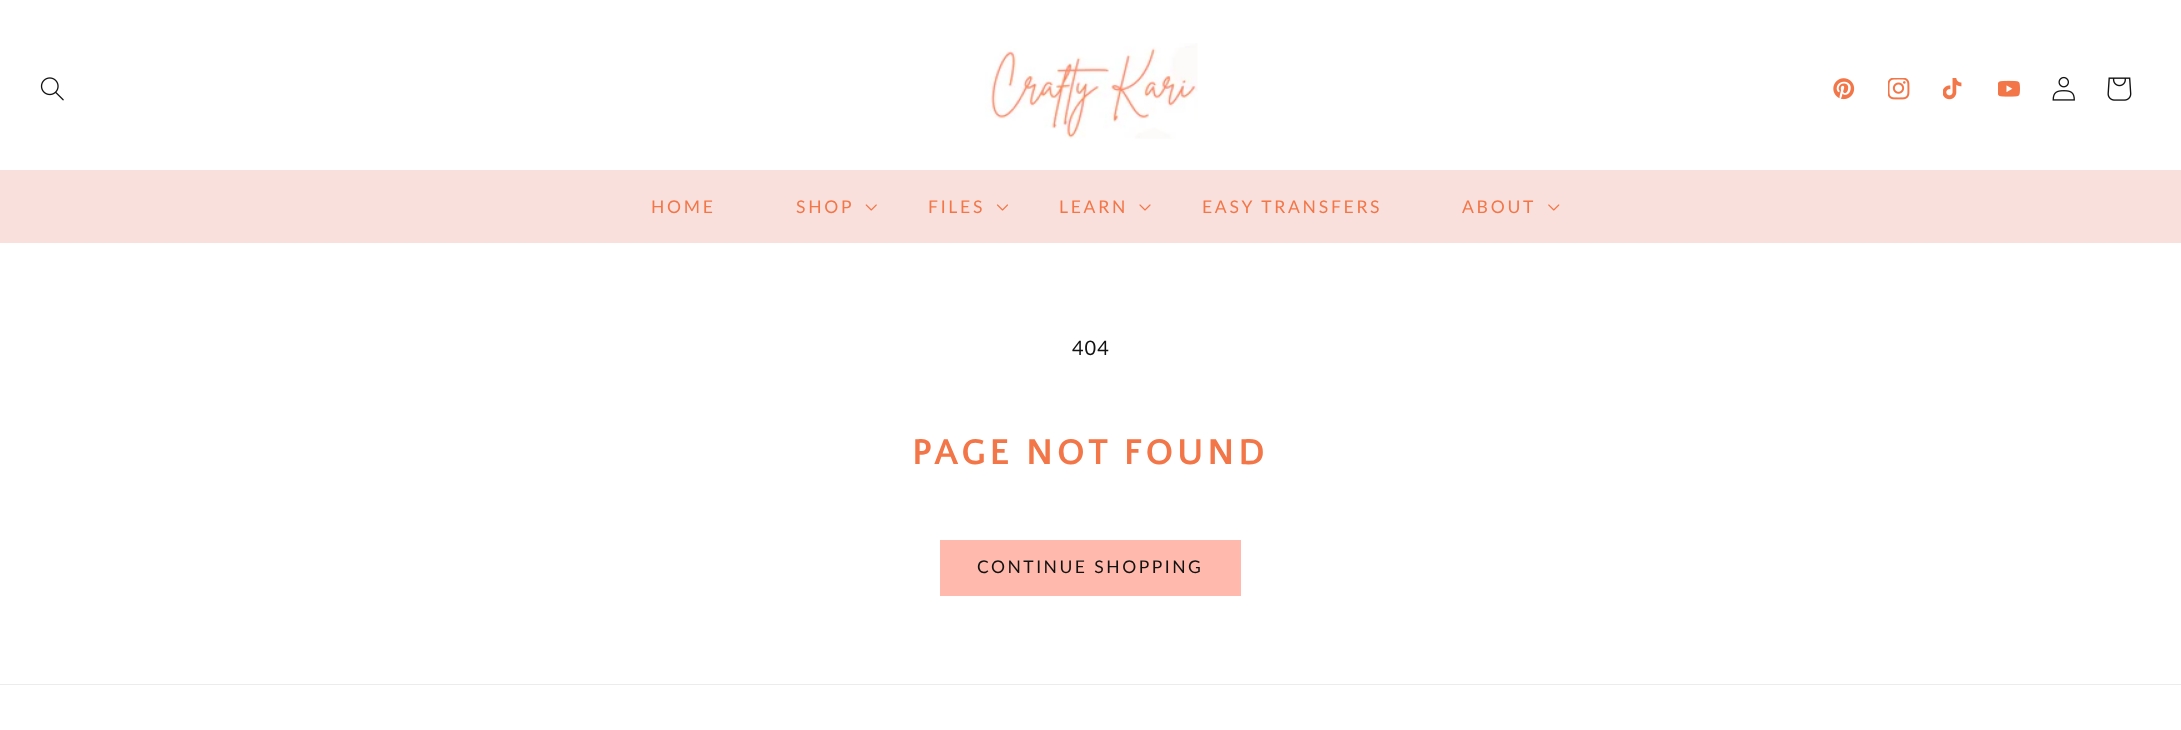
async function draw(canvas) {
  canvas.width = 2181
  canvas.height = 730
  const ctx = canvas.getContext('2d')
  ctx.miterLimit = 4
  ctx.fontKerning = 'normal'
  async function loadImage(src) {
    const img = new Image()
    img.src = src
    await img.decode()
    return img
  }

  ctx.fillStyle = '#fff'
  ctx.fillRect(0, 0, 2181, 730)
  ctx.drawImage(await loadImage('image0.png'), 40, 77, 24, 24)
  ctx.drawImage(await loadImage('image1.png'), 985, 43, 213, 96)
  ctx.drawImage(await loadImage('image2.png'), 1833, 78, 22, 22)
  ctx.drawImage(await loadImage('image3.png'), 1888, 78, 22, 22)
  ctx.drawImage(await loadImage('image4.png'), 1943, 78, 19, 22)
  ctx.drawImage(await loadImage('image5.png'), 1998, 80, 22, 17)
  ctx.drawImage(await loadImage('image6.png'), 2052, 76, 23, 25)
  ctx.drawImage(await loadImage('image7.png'), 2107, 77, 25, 24)
  ctx.fillStyle = '#fae0dc'
  ctx.fillRect(0, 170, 2181, 73)
  ctx.letterSpacing = '2.75px'
  ctx.font = '17.5px Lato'
  ctx.fillStyle = '#f27648'
  ctx.fillText('HOME', 651, 213)
  ctx.fillText('SHOP', 796, 213)
  ctx.drawImage(await loadImage('image8.png'), 865, 204, 12, 7)
  ctx.fillText('FILES', 928, 213)
  ctx.drawImage(await loadImage('image9.png'), 997, 204, 11, 7)
  ctx.fillText('LEARN', 1059, 213)
  ctx.drawImage(await loadImage('image10.png'), 1139, 204, 12, 7)
  ctx.fillText('EASY TRANSFERS', 1202, 213)
  ctx.fillText('ABOUT', 1462, 213)
  ctx.drawImage(await loadImage('image11.png'), 1548, 204, 12, 7)
  ctx.letterSpacing = '1px'
  ctx.font = '20px Lato'
  ctx.fillStyle = '#121212'
  ctx.fillText('404', 1072, 355)
  ctx.letterSpacing = '3.75px'
  ctx.font = 'bold 37.5px Quattrocento Sans'
  ctx.fillStyle = '#f27648'
  ctx.fillText('PAGE NOT FOUND', 912, 464)
  ctx.fillStyle = '#ffbaad'
  ctx.fillRect(940, 540, 301, 56)
  ctx.letterSpacing = '2.5px'
  ctx.font = '17.5px Lato'
  ctx.fillStyle = '#121212'
  ctx.fillText('CONTINUE SHOPPING', 977, 573)
  ctx.fillStyle = '#ececec'
  ctx.fillRect(0, 684, 2181, 1)
}

draw(document.querySelector('canvas'))
